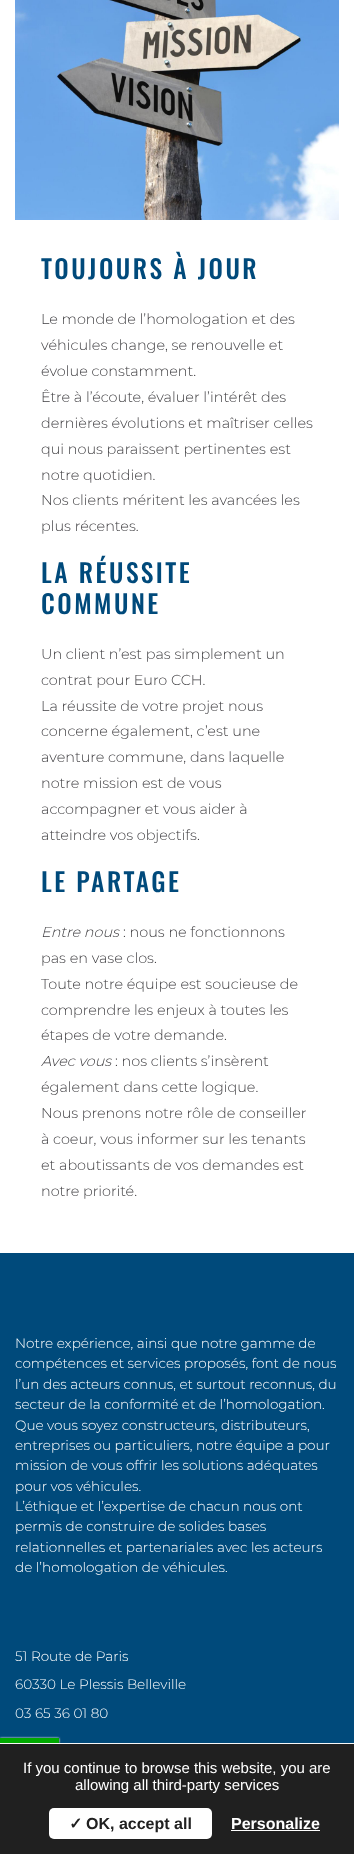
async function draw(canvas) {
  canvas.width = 354
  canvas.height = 1854
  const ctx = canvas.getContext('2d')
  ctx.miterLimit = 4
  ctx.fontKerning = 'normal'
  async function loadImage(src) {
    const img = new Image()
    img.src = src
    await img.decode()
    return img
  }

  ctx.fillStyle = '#fff'
  ctx.fillRect(0, 0, 354, 1854)
  ctx.drawImage(await loadImage('image0.png'), 15, 0, 324, 220)
  ctx.letterSpacing = '2.5px'
  ctx.font = '500 25.5px Oswald'
  ctx.fillStyle = '#004a7b'
  ctx.fillText('TOUJOURS À JOUR', 41, 279)
  ctx.letterSpacing = '0px'
  ctx.font = '300 14.4px Montserrat'
  ctx.fillStyle = '#3e3d40'
  ctx.fillText('Le monde de l’homologation et des', 41, 324)
  ctx.fillText('véhicules change, se renouvelle et', 41, 350)
  ctx.fillText('évolue constamment.', 41, 376)
  ctx.fillText('Être à l’écoute, évaluer l’intérêt des', 41, 402)
  ctx.fillText('dernières évolutions et maîtriser celles', 41, 428)
  ctx.fillText('qui nous paraissent pertinentes est', 41, 454)
  ctx.fillText('notre quotidien.', 41, 480)
  ctx.fillText('Nos clients méritent les avancées les', 41, 505)
  ctx.fillText('plus récentes.', 41, 531)
  ctx.letterSpacing = '2.5px'
  ctx.font = '500 25.5px Oswald'
  ctx.fillStyle = '#004a7b'
  ctx.fillText('LA RÉUSSITE', 41, 583)
  ctx.fillText('COMMUNE', 41, 614)
  ctx.letterSpacing = '0px'
  ctx.font = '300 14.4px Montserrat'
  ctx.fillStyle = '#3e3d40'
  ctx.fillText('Un client n’est pas simplement un', 41, 659)
  ctx.fillText('contrat pour Euro CCH.', 41, 685)
  ctx.fillText('La réussite de votre projet nous', 41, 711)
  ctx.fillText('concerne également, c’est une', 41, 736)
  ctx.fillText('aventure commune, dans laquelle', 41, 762)
  ctx.fillText('notre mission est de vous', 41, 788)
  ctx.fillText('accompagner et vous aider à', 41, 814)
  ctx.fillText('atteindre vos objectifs.', 41, 840)
  ctx.letterSpacing = '2.5px'
  ctx.font = '500 25.5px Oswald'
  ctx.fillStyle = '#004a7b'
  ctx.fillText('LE PARTAGE', 41, 892)
  ctx.letterSpacing = '0px'
  ctx.font = 'italic 300 14.4px Montserrat'
  ctx.fillStyle = '#3e3d40'
  ctx.fillText('Entre nous', 41, 937)
  ctx.font = '300 14.4px Montserrat'
  ctx.fillText(': nous ne fonctionnons', 123, 937)
  ctx.fillText('pas en vase clos.', 41, 963)
  ctx.fillText('Toute notre équipe est soucieuse de', 41, 989)
  ctx.fillText('comprendre les enjeux à toutes les', 41, 1015)
  ctx.fillText('étapes de votre demande.', 41, 1040)
  ctx.font = 'italic 300 14.4px Montserrat'
  ctx.fillText('Avec vous', 41, 1066)
  ctx.font = '300 14.4px Montserrat'
  ctx.fillText(': nos clients s’insèrent', 115, 1066)
  ctx.fillText('également dans cette logique.', 41, 1092)
  ctx.fillText('Nous prenons notre rôle de conseiller', 41, 1118)
  ctx.fillText('à coeur, vous informer sur les tenants', 41, 1144)
  ctx.fillText('et aboutissants de vos demandes est', 41, 1170)
  ctx.fillText('notre priorité.', 41, 1196)
  ctx.fillStyle = '#004a7b'
  ctx.fillRect(0, 1253, 354, 490)
  ctx.font = '300 13.6px Montserrat'
  ctx.fillStyle = '#fff'
  ctx.fillText('Notre expérience, ainsi que notre gamme de', 15, 1348)
  ctx.fillText('compétences et services proposés, font de nous', 15, 1368)
  ctx.fillText('l’un des acteurs connus, et surtout reconnus, du', 15, 1389)
  ctx.fillText('secteur de la conformité et de l’homologation.', 15, 1409)
  ctx.fillText('Que vous soyez constructeurs, distributeurs,', 15, 1430)
  ctx.fillText('entreprises ou particuliers, notre équipe a pour', 15, 1450)
  ctx.fillText('mission de vous offrir les solutions adéquates', 15, 1470)
  ctx.fillText('pour vos véhicules.', 15, 1491)
  ctx.fillText('L’éthique et l’expertise de chacun nous ont', 15, 1511)
  ctx.fillText('permis de construire de solides bases', 15, 1531)
  ctx.fillText('relationnelles et partenariales avec les acteurs', 15, 1552)
  ctx.fillText('de l’homologation de véhicules.', 15, 1572)
  ctx.fillText('51 Route de Paris', 15, 1661)
  ctx.fillText('60330 Le Plessis Belleville', 15, 1689)
  ctx.fillText('03 65 36 01 80', 15, 1718)
  ctx.fillStyle = '#555'
  ctx.filter = 'blur(1px)'
  ctx.beginPath()
  ctx.rect(0, 1739, 59, 5)
  ctx.fill()
  ctx.filter = 'none'
  ctx.fillStyle = '#fff'
  ctx.filter = 'blur(1px)'
  ctx.beginPath()
  ctx.rect(0, 1738, 59, 5)
  ctx.fill()
  ctx.filter = 'none'
  ctx.fillStyle = '#0a0'
  ctx.fillRect(0, 1738, 59, 5)
  ctx.fillStyle = '#202020'
  ctx.fillRect(0, 1744, 354, 110)
  ctx.fillStyle = '#f7f7f7'
  ctx.fillRect(0, 1743, 354, 1)
  ctx.font = '15px Liberation Sans'
  ctx.fillStyle = '#fff'
  ctx.fillText('If you continue to browse this website, you are', 23, 1773)
  ctx.fillText('allowing all third-party services', 75, 1790)
  ctx.beginPath()
  ctx.roundRect(49, 1808, 163, 31, 5)
  ctx.fill()
  ctx.font = 'bold 16px DejaVu Sans'
  ctx.fillStyle = '#202020'
  ctx.fillText('✓', 69, 1829)
  ctx.font = 'bold 16px Liberation Sans'
  ctx.fillText('OK, accept all', 86, 1829)
  ctx.fillStyle = '#fff'
  ctx.fillText('Personalize', 231, 1829)
  ctx.fillRect(231, 1830, 89, 1)
}

draw(document.querySelector('canvas'))
